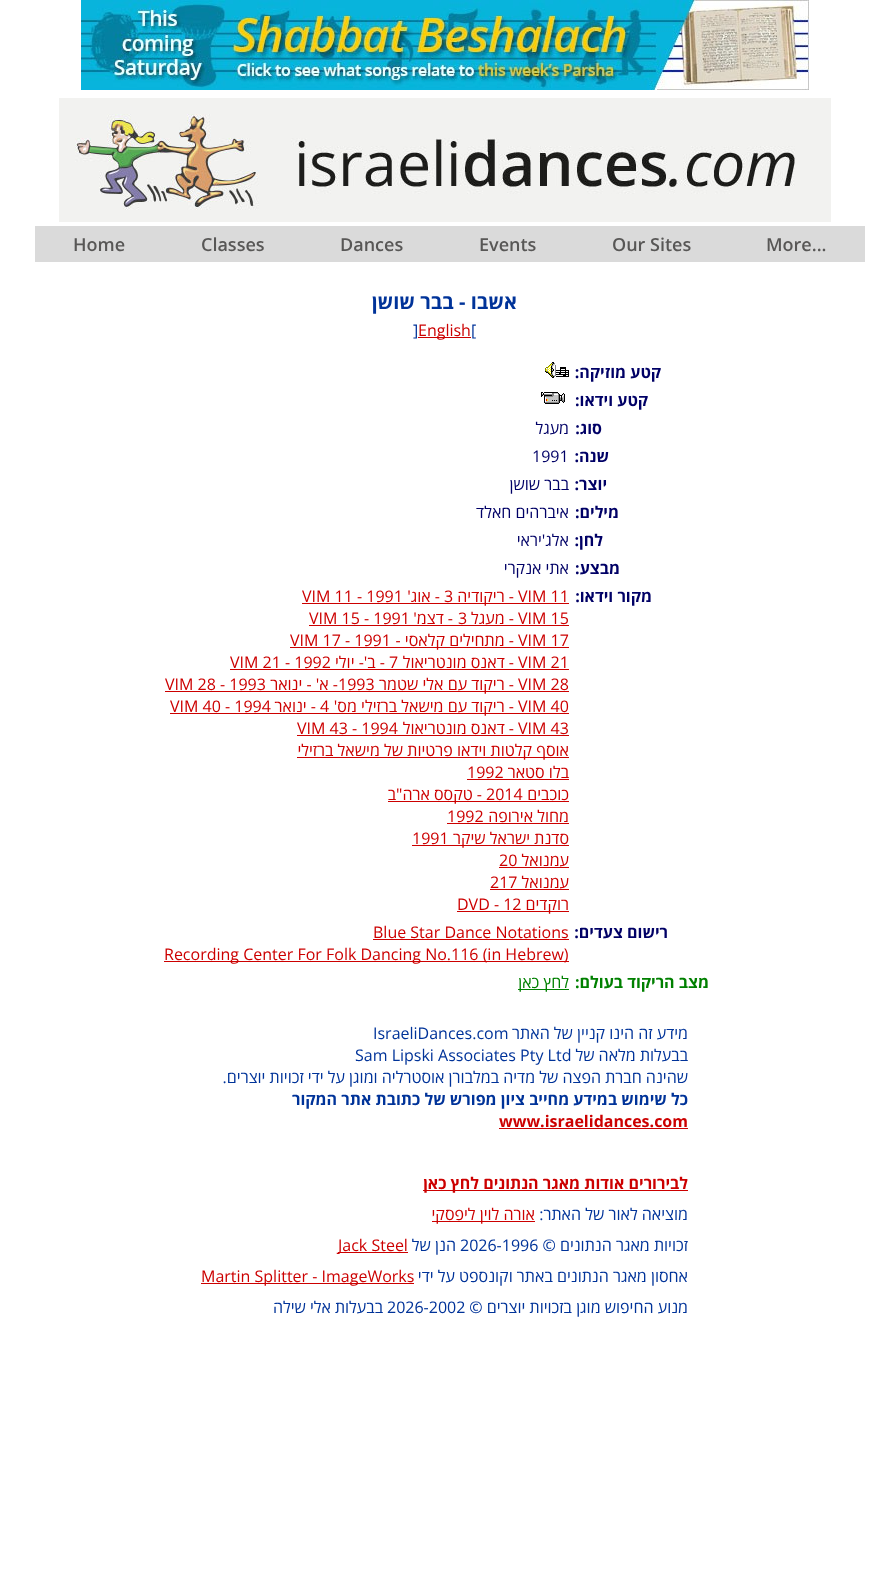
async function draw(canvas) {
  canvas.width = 889
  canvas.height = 1580
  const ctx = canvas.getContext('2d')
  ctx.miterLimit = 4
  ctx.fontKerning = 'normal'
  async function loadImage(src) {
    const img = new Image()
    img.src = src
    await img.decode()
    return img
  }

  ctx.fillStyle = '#fff'
  ctx.fillRect(0, 0, 889, 1580)
  ctx.drawImage(await loadImage('image0.png'), 81, 0, 728, 90)
  ctx.drawImage(await loadImage('image1.png'), 59, 98, 772, 124)
  ctx.fillStyle = '#dadada'
  ctx.fillRect(35, 226, 830, 36)
  ctx.font = '600 18px Open Sans'
  ctx.fillStyle = '#585756'
  ctx.fillText('More...', 766, 251)
  ctx.fillText('Our Sites', 612, 251)
  ctx.fillText('Events', 479, 251)
  ctx.fillText('Dances', 340, 251)
  ctx.fillText('Classes', 201, 251)
  ctx.fillText('Home', 73, 251)
  ctx.direction = 'rtl'
  ctx.font = 'bold 20px Open Sans'
  ctx.fillStyle = '#039'
  ctx.fillText('אשבו - בבר שושן', 517, 309)
  ctx.direction = 'ltr'
  ctx.font = '16px Open Sans'
  ctx.fillText('[', 471, 336)
  ctx.fillStyle = '#c00'
  ctx.fillRect(418, 337, 53, 1)
  ctx.fillText('English', 418, 336)
  ctx.fillStyle = '#039'
  ctx.fillText(']', 413, 336)
  ctx.direction = 'rtl'
  ctx.font = 'bold 16px Open Sans'
  ctx.fillStyle = '#006'
  ctx.fillText('קטע מוזיקה:', 661, 378)
  ctx.drawImage(await loadImage('image2.png'), 545, 362, 24, 16)
  ctx.fillText('קטע וידאו:', 648, 406)
  ctx.drawImage(await loadImage('image3.png'), 541, 392, 24, 12)
  ctx.fillText('סוג:', 602, 434)
  ctx.font = '16px Open Sans'
  ctx.fillText('מעגל', 569, 434)
  ctx.font = 'bold 16px Open Sans'
  ctx.fillText('שנה:', 609, 462)
  ctx.direction = 'ltr'
  ctx.font = '16px Open Sans'
  ctx.fillText('1991', 532, 462)
  ctx.direction = 'rtl'
  ctx.font = 'bold 16px Open Sans'
  ctx.fillText('יוצר:', 607, 490)
  ctx.font = '16px Open Sans'
  ctx.fillText('בבר שושן', 569, 490)
  ctx.font = 'bold 16px Open Sans'
  ctx.fillText('מילים:', 619, 518)
  ctx.font = '16px Open Sans'
  ctx.fillText('איברהים חאלד', 569, 518)
  ctx.font = 'bold 16px Open Sans'
  ctx.fillText('לחן:', 603, 546)
  ctx.font = '16px Open Sans'
  ctx.fillText('אלג\'יראי', 569, 546)
  ctx.font = 'bold 16px Open Sans'
  ctx.fillText('מבצע:', 620, 574)
  ctx.font = '16px Open Sans'
  ctx.fillText('אתי אנקרי', 569, 574)
  ctx.font = 'bold 16px Open Sans'
  ctx.fillText('מקור וידאו:', 652, 602)
  ctx.direction = 'ltr'
  ctx.font = '16px Open Sans'
  ctx.fillStyle = '#c00'
  ctx.fillText('VIM 11', 518, 602)
  ctx.fillRect(302, 603, 267, 1)
  ctx.direction = 'rtl'
  ctx.fillText('- ריקודיה', 514, 602)
  ctx.direction = 'ltr'
  ctx.fillText('3', 444, 602)
  ctx.direction = 'rtl'
  ctx.fillText('- אוג\'', 440, 602)
  ctx.direction = 'ltr'
  ctx.fillText('VIM 11 - 1991', 302, 602)
  ctx.fillText('VIM 15', 518, 624)
  ctx.direction = 'rtl'
  ctx.fillText('- מעגל', 514, 624)
  ctx.direction = 'ltr'
  ctx.fillText('3', 458, 624)
  ctx.direction = 'rtl'
  ctx.fillText('- דצמ\'', 453, 624)
  ctx.direction = 'ltr'
  ctx.fillText('VIM 15 - 1991', 309, 624)
  ctx.fillRect(309, 625, 260, 1)
  ctx.fillText('VIM 17', 518, 646)
  ctx.fillRect(290, 647, 279, 1)
  ctx.direction = 'rtl'
  ctx.fillText('- מתחילים קלאסי -', 514, 646)
  ctx.direction = 'ltr'
  ctx.fillText('VIM 17 - 1991', 290, 646)
  ctx.fillText('VIM 21', 518, 668)
  ctx.direction = 'rtl'
  ctx.fillText('- דאנס מונטריאול', 514, 668)
  ctx.direction = 'ltr'
  ctx.fillText('7', 389, 668)
  ctx.direction = 'rtl'
  ctx.fillText('- ב\'- יולי', 385, 668)
  ctx.direction = 'ltr'
  ctx.fillText('VIM 21 - 1992', 230, 668)
  ctx.fillRect(230, 669, 339, 1)
  ctx.fillText('VIM 28', 518, 690)
  ctx.fillRect(165, 691, 404, 1)
  ctx.direction = 'rtl'
  ctx.fillText('- ריקוד עם אלי שטמר', 514, 690)
  ctx.direction = 'ltr'
  ctx.fillText('1993', 338, 690)
  ctx.direction = 'rtl'
  ctx.fillText('- א\' - ינואר', 338, 690)
  ctx.direction = 'ltr'
  ctx.fillText('VIM 28 - 1993', 165, 690)
  ctx.fillText('VIM 40', 518, 712)
  ctx.fillRect(170, 713, 399, 1)
  ctx.direction = 'rtl'
  ctx.fillText('- ריקוד עם מישאל ברזילי מס\'', 514, 712)
  ctx.direction = 'ltr'
  ctx.fillText('4', 320, 712)
  ctx.direction = 'rtl'
  ctx.fillText('- ינואר', 316, 712)
  ctx.direction = 'ltr'
  ctx.fillText('VIM 40 - 1994', 170, 712)
  ctx.fillText('VIM 43', 518, 734)
  ctx.direction = 'rtl'
  ctx.fillText('- דאנס מונטריאול', 514, 734)
  ctx.direction = 'ltr'
  ctx.fillText('VIM 43 - 1994', 297, 734)
  ctx.fillRect(297, 735, 272, 1)
  ctx.fillRect(297, 757, 272, 1)
  ctx.direction = 'rtl'
  ctx.fillText('אוסף קלטות וידאו פרטיות של מישאל ברזילי', 569, 756)
  ctx.fillText('בלו סטאר', 569, 778)
  ctx.direction = 'ltr'
  ctx.fillText('1992', 467, 778)
  ctx.fillRect(467, 779, 102, 1)
  ctx.direction = 'rtl'
  ctx.fillText('כוכבים', 569, 800)
  ctx.direction = 'ltr'
  ctx.fillText('2014', 486, 800)
  ctx.fillRect(388, 801, 181, 1)
  ctx.direction = 'rtl'
  ctx.fillText('- טקסס ארה"ב', 482, 800)
  ctx.fillText('מחול אירופה', 569, 822)
  ctx.direction = 'ltr'
  ctx.fillText('1992', 447, 822)
  ctx.fillRect(447, 823, 122, 1)
  ctx.fillRect(412, 845, 157, 1)
  ctx.direction = 'rtl'
  ctx.fillText('סדנת ישראל שיקר', 569, 844)
  ctx.direction = 'ltr'
  ctx.fillText('1991', 412, 844)
  ctx.direction = 'rtl'
  ctx.fillText('עמנואל', 569, 866)
  ctx.direction = 'ltr'
  ctx.fillText('20', 499, 866)
  ctx.fillRect(499, 867, 70, 1)
  ctx.direction = 'rtl'
  ctx.fillText('עמנואל', 569, 888)
  ctx.direction = 'ltr'
  ctx.fillText('217', 490, 888)
  ctx.fillRect(490, 889, 79, 1)
  ctx.fillRect(457, 911, 112, 1)
  ctx.direction = 'rtl'
  ctx.fillText('רוקדים', 569, 910)
  ctx.direction = 'ltr'
  ctx.fillText('DVD - 12', 457, 910)
  ctx.direction = 'rtl'
  ctx.font = 'bold 16px Open Sans'
  ctx.fillStyle = '#006'
  ctx.fillText('רישום צעדים:', 668, 938)
  ctx.direction = 'ltr'
  ctx.font = '16px Open Sans'
  ctx.fillStyle = '#c00'
  ctx.fillText('Blue Star Dance Notations', 373, 938)
  ctx.fillRect(373, 939, 196, 1)
  ctx.fillRect(164, 961, 405, 1)
  ctx.fillText('Recording Center For Folk Dancing No.116 (in Hebrew)', 164, 960)
  ctx.direction = 'rtl'
  ctx.font = 'bold 16px Open Sans'
  ctx.fillStyle = '#008000'
  ctx.fillText('מצב הריקוד בעולם:', 709, 988)
  ctx.fillRect(518, 989, 51, 1)
  ctx.font = '16px Open Sans'
  ctx.fillText('לחץ כאן', 569, 988)
  ctx.fillStyle = '#039'
  ctx.fillText('מידע זה הינו קניין של האתר', 688, 1039)
  ctx.direction = 'ltr'
  ctx.fillText('IsraeliDances.com', 373, 1039)
  ctx.direction = 'rtl'
  ctx.fillText('בבעלות מלאה של', 688, 1061)
  ctx.direction = 'ltr'
  ctx.fillText('Sam Lipski Associates Pty Ltd', 355, 1061)
  ctx.direction = 'rtl'
  ctx.fillText('שהינה חברת הפצה של מדיה במלבורן אוסטרליה ומוגן על ידי זכויות יוצרים.', 688, 1083)
  ctx.font = 'bold 16px Open Sans'
  ctx.fillText('כל שימוש במידע מחייב ציון מפורש של כתובת אתר המקור', 688, 1105)
  ctx.direction = 'ltr'
  ctx.fillStyle = '#c00'
  ctx.fillText('www.israelidances.com', 499, 1127)
  ctx.fillRect(499, 1128, 189, 1)
  ctx.fillRect(423, 1190, 265, 1)
  ctx.direction = 'rtl'
  ctx.fillText('לבירורים אודות מאגר הנתונים לחץ כאן', 688, 1189)
  ctx.font = '16px Open Sans'
  ctx.fillStyle = '#039'
  ctx.fillText('מוציאה לאור של האתר:', 688, 1220)
  ctx.fillStyle = '#c00'
  ctx.fillRect(432, 1221, 103, 1)
  ctx.fillText('אורה לוין ליפסקי', 535, 1220)
  ctx.fillStyle = '#039'
  ctx.fillText('זכויות מאגר הנתונים ©', 688, 1251)
  ctx.direction = 'ltr'
  ctx.fillText('2026-1996', 460, 1251)
  ctx.direction = 'rtl'
  ctx.fillText('הנן של', 456, 1251)
  ctx.fillStyle = '#c00'
  ctx.fillRect(338, 1252, 70, 1)
  ctx.direction = 'ltr'
  ctx.fillText('Jack Steel', 338, 1251)
  ctx.direction = 'rtl'
  ctx.fillStyle = '#039'
  ctx.fillText('אחסון מאגר הנתונים באתר וקונספט על ידי', 688, 1282)
  ctx.fillStyle = '#c00'
  ctx.fillRect(201, 1283, 213, 1)
  ctx.direction = 'ltr'
  ctx.fillText('Martin Splitter - ImageWorks', 201, 1282)
  ctx.direction = 'rtl'
  ctx.fillStyle = '#039'
  ctx.fillText('מנוע החיפוש מוגן בזכויות יוצרים ©', 688, 1313)
  ctx.direction = 'ltr'
  ctx.fillText('2026-2002', 387, 1313)
  ctx.direction = 'rtl'
  ctx.fillText('בבעלות', 383, 1313)
  ctx.fillText('אלי שילה', 331, 1313)
}

draw(document.querySelector('canvas'))
